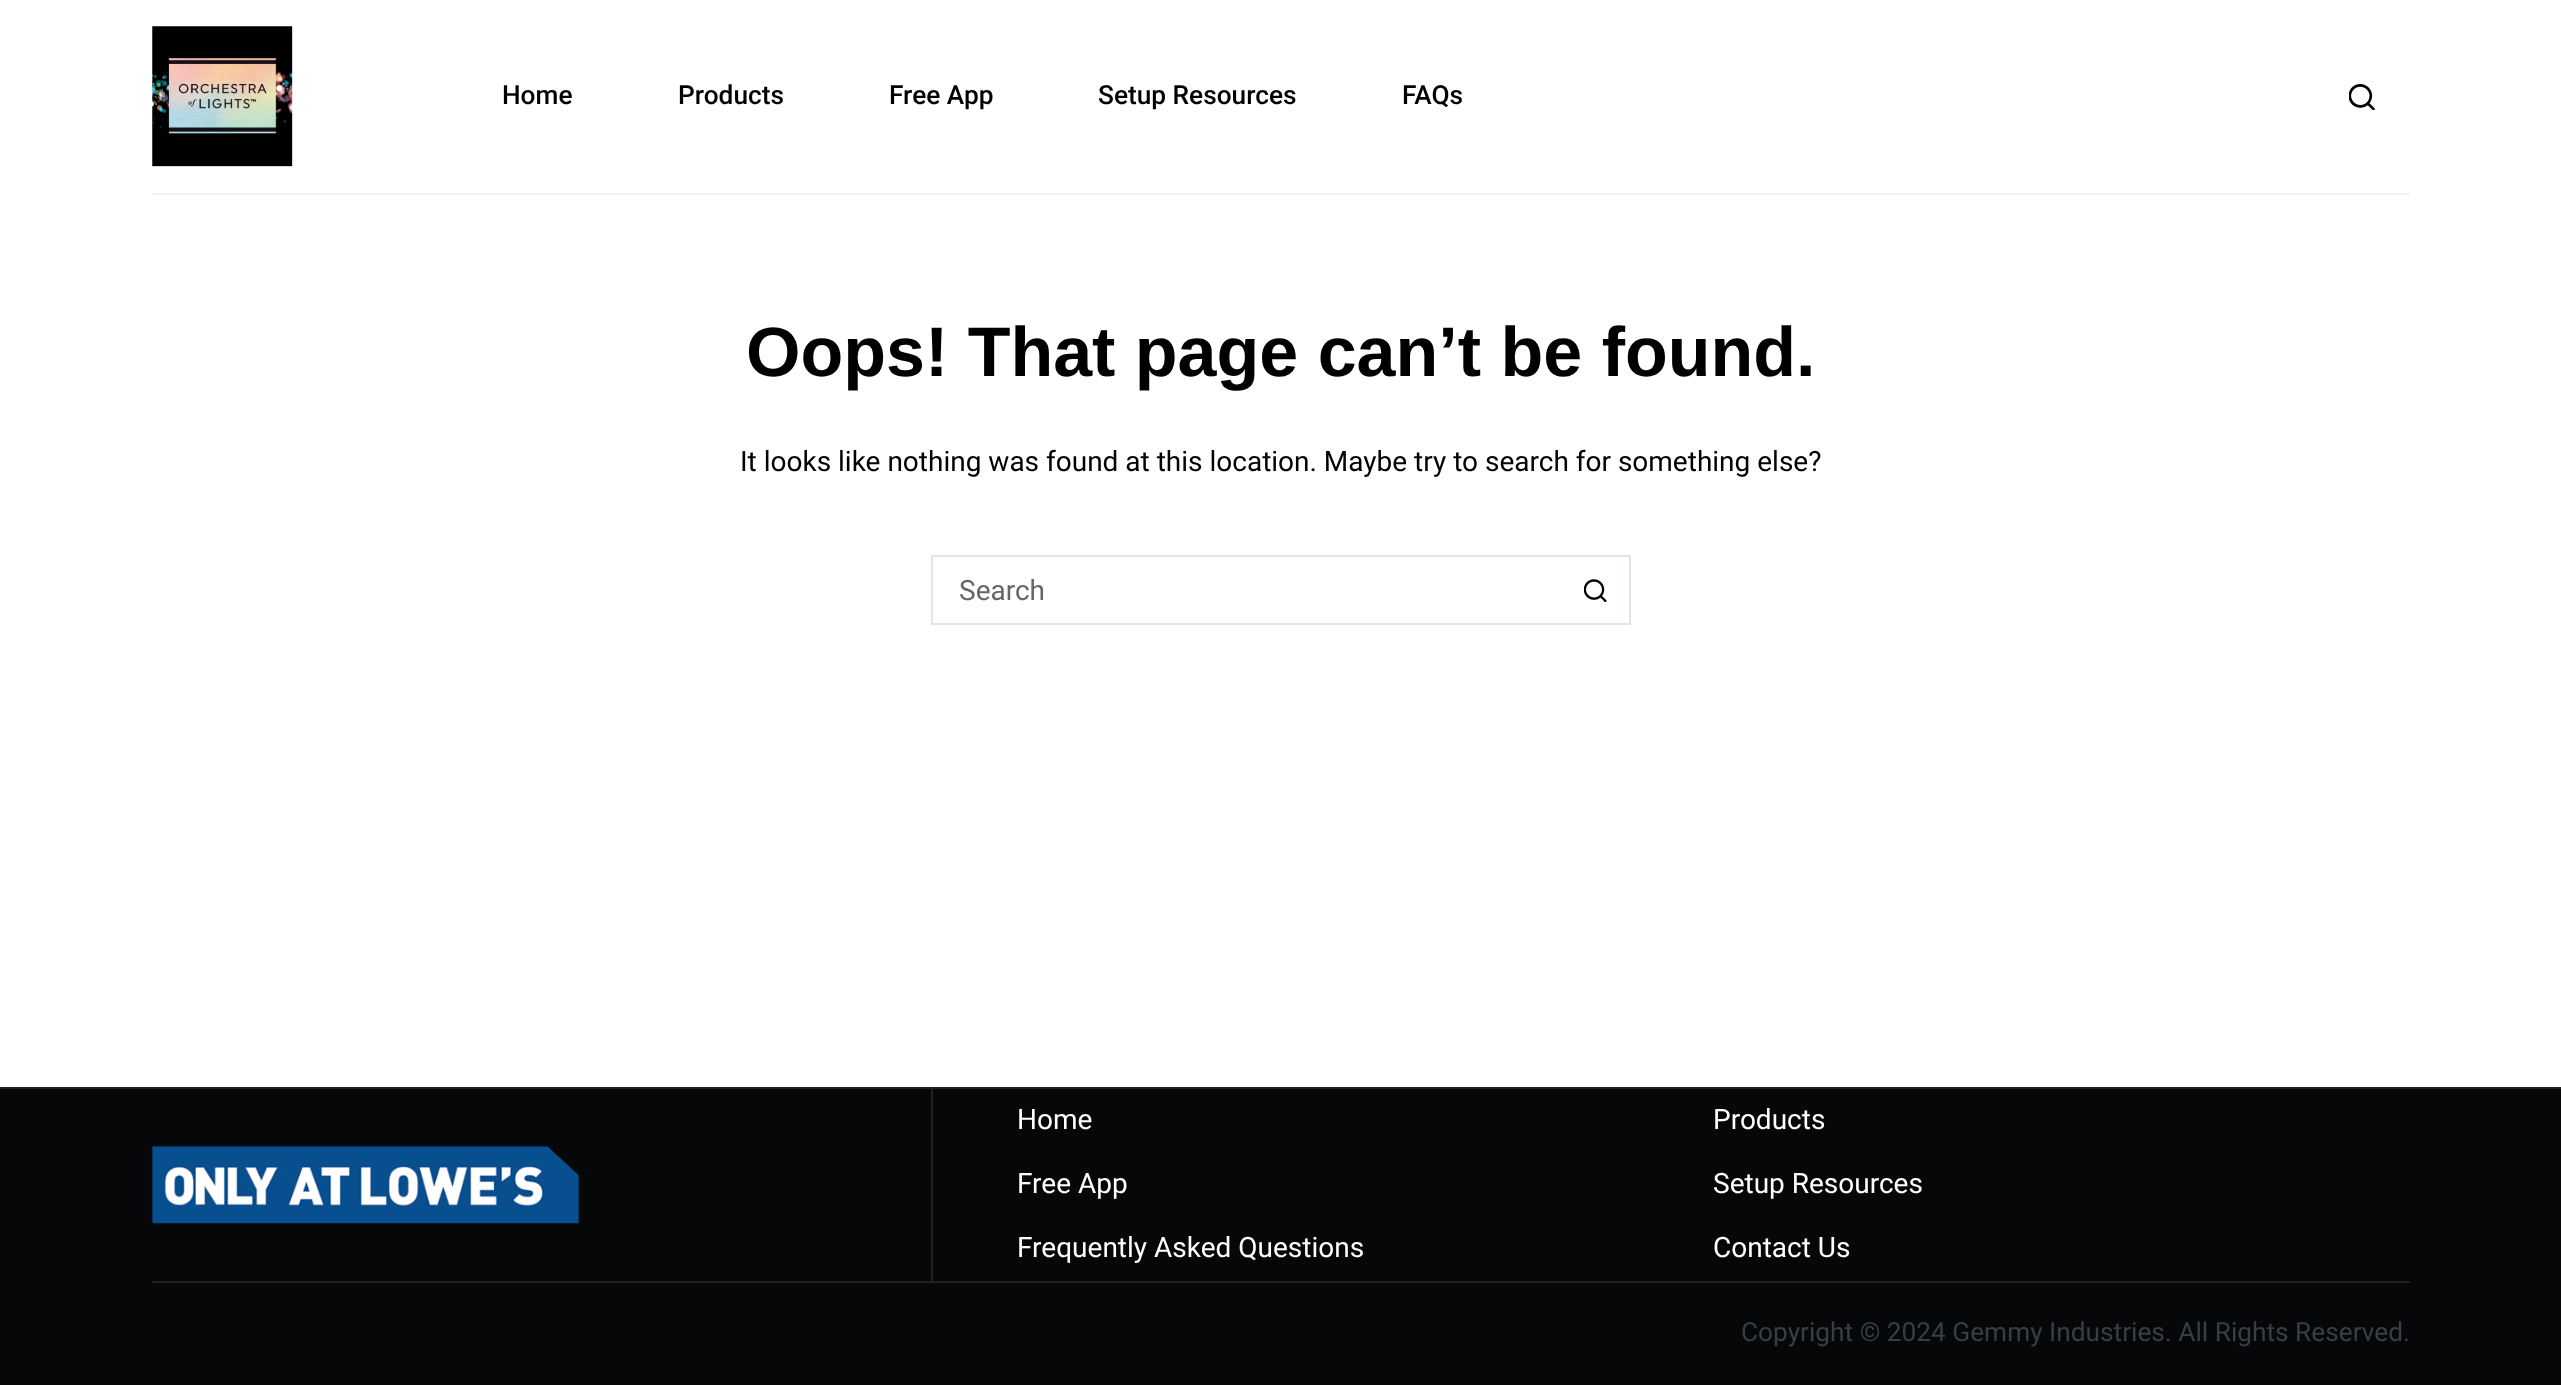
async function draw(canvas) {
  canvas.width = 2561
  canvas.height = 1385
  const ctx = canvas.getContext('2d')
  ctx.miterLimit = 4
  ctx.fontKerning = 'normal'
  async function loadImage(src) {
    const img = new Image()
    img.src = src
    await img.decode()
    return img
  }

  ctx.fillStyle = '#fff'
  ctx.fillRect(0, 0, 2561, 1385)
  ctx.fillStyle = '#f2f2f2'
  ctx.fillRect(152, 193, 2258, 2)
  ctx.drawImage(await loadImage('image0.png'), 152, 26, 141, 141)
  ctx.font = '500 26.25px Roboto'
  ctx.fillStyle = '#000'
  ctx.fillText('Home', 502, 104)
  ctx.fillText('Products', 678, 104)
  ctx.fillText('Free App', 889, 104)
  ctx.fillText('Setup Resources', 1098, 104)
  ctx.fillText('FAQs', 1402, 104)
  ctx.drawImage(await loadImage('image1.png'), 2349, 84, 26, 26)
  ctx.font = 'bold 70px Liberation Sans'
  ctx.fillText('Oops! That page can’t be found.', 746, 376)
  ctx.font = '28px Roboto'
  ctx.fillText('It looks like nothing was found at this location. Maybe try to search for something else?', 740, 471)
  ctx.fillStyle = '#e0e5eb'
  ctx.fillRect(931, 555, 700, 2)
  ctx.fillRect(931, 623, 630, 2)
  ctx.fillRect(931, 555, 2, 70)
  ctx.fillStyle = '#666'
  ctx.fillText('Search', 959, 600)
  ctx.fillStyle = '#e0e5eb'
  ctx.fillRect(1629, 555, 2, 70)
  ctx.fillRect(1561, 623, 70, 2)
  ctx.drawImage(await loadImage('image2.png'), 1584, 579, 23, 23)
  ctx.fillStyle = '#050709'
  ctx.fillRect(0, 1089, 2561, 296)
  ctx.fillStyle = '#1e2022'
  ctx.fillRect(0, 1087, 2561, 2)
  ctx.drawImage(await loadImage('image3.png'), 152, 1146, 428, 78)
  ctx.fillRect(931, 1089, 2, 192)
  ctx.fillStyle = '#fff'
  ctx.fillText('Home', 1017, 1129)
  ctx.fillText('Products', 1713, 1129)
  ctx.fillText('Free App', 1017, 1193)
  ctx.fillText('Setup Resources', 1713, 1193)
  ctx.fillText('Frequently Asked Questions', 1017, 1257)
  ctx.fillText('Contact Us', 1713, 1257)
  ctx.fillStyle = '#1e2022'
  ctx.fillRect(152, 1281, 2258, 2)
  ctx.font = '26.25px Roboto'
  ctx.fillStyle = '#393e44'
  ctx.fillText('Copyright © 2024 Gemmy Industries. All Rights Reserved.', 1741, 1341)
}

draw(document.querySelector('canvas'))
